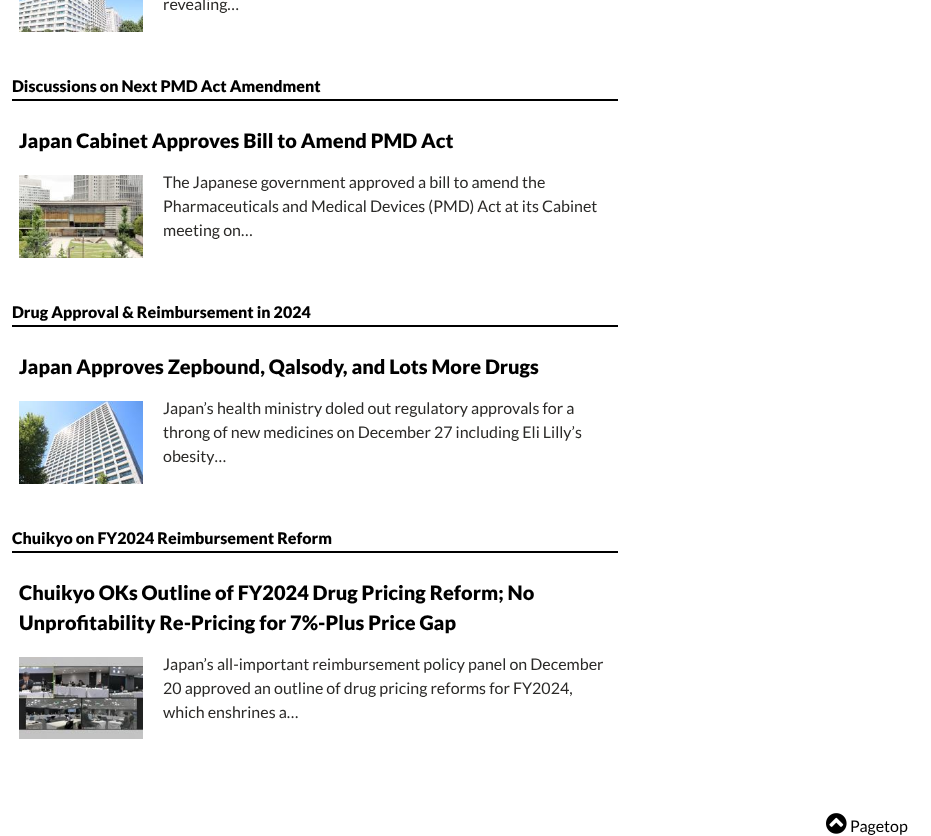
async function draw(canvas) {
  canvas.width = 931
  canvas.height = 836
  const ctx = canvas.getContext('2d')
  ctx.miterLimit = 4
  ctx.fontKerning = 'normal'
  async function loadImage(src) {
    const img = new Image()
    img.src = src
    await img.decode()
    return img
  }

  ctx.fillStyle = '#fff'
  ctx.fillRect(0, 0, 931, 836)
  ctx.drawImage(await loadImage('image0.png'), 19, 0, 124, 32)
  ctx.font = '16px Lato'
  ctx.fillStyle = '#2b2a28'
  ctx.fillText('revealing…', 163, 10)
  ctx.fillStyle = '#000'
  ctx.fillRect(12, 99, 606, 2)
  ctx.font = '900 16px Lato'
  ctx.fillText('Discussions on Next PMD Act Amendment', 12, 92)
  ctx.font = '900 20px Lato'
  ctx.fillText('Japan Cabinet Approves Bill to Amend PMD Act', 19, 148)
  ctx.drawImage(await loadImage('image1.png'), 19, 175, 124, 83)
  ctx.font = '16px Lato'
  ctx.fillStyle = '#2b2a28'
  ctx.fillText('The Japanese government approved a bill to amend the', 163, 188)
  ctx.fillText('Pharmaceuticals and Medical Devices (PMD) Act at its Cabinet', 163, 212)
  ctx.fillText('meeting on…', 163, 236)
  ctx.fillStyle = '#000'
  ctx.fillRect(12, 325, 606, 2)
  ctx.font = '900 16px Lato'
  ctx.fillText('Drug Approval & Reimbursement in 2024', 12, 318)
  ctx.font = '900 20px Lato'
  ctx.fillText('Japan Approves Zepbound, Qalsody, and Lots More Drugs', 19, 374)
  ctx.drawImage(await loadImage('image2.png'), 19, 401, 124, 83)
  ctx.font = '16px Lato'
  ctx.fillStyle = '#2b2a28'
  ctx.fillText('Japan’s health ministry doled out regulatory approvals for a', 163, 414)
  ctx.fillText('throng of new medicines on December 27 including Eli Lilly’s', 163, 438)
  ctx.fillText('obesity…', 163, 462)
  ctx.fillStyle = '#000'
  ctx.fillRect(12, 551, 606, 2)
  ctx.font = '900 16px Lato'
  ctx.fillText('Chuikyo on FY2024 Reimbursement Reform', 12, 544)
  ctx.font = '900 20px Lato'
  ctx.fillText('Chuikyo OKs Outline of FY2024 Drug Pricing Reform; No', 19, 600)
  ctx.fillText('Unprofitability Re-Pricing for 7%-Plus Price Gap', 19, 630)
  ctx.drawImage(await loadImage('image3.png'), 19, 657, 124, 82)
  ctx.font = '16px Lato'
  ctx.fillStyle = '#2b2a28'
  ctx.fillText('Japan’s all-important reimbursement policy panel on December', 163, 670)
  ctx.fillText('20 approved an outline of drug pricing reforms for FY2024,', 163, 694)
  ctx.fillText('which enshrines a…', 163, 718)
  ctx.drawImage(await loadImage('image4.png'), 826, 813, 21, 21)
  ctx.fillStyle = '#000'
  ctx.fillText('Pagetop', 850, 832)
}

draw(document.querySelector('canvas'))
